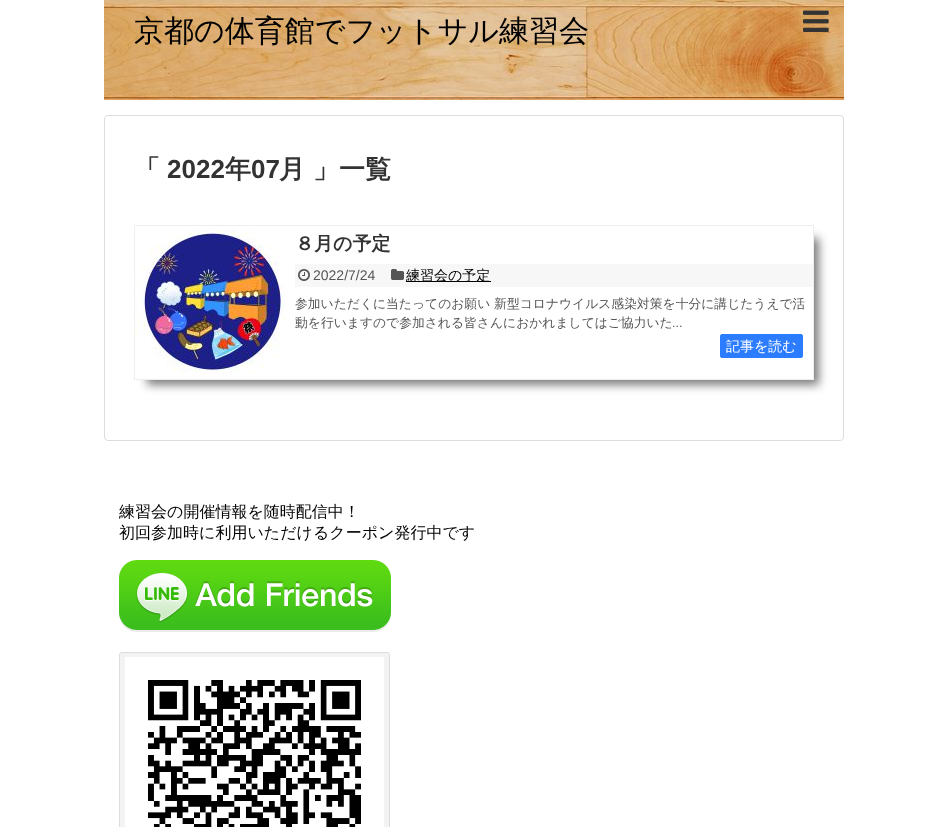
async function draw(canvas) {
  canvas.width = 947
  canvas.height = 827
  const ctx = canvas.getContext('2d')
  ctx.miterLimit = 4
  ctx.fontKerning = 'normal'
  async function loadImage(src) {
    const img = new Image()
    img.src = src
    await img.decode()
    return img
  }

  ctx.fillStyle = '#fff'
  ctx.fillRect(0, 0, 947, 827)
  ctx.drawImage(await loadImage('image0.png'), 104, 0, 740, 100)
  ctx.font = '500 30px WenQuanYi Zen Hei'
  ctx.fillStyle = '#000'
  ctx.fillText('京都の体育館でフットサル練習会', 134, 41)
  ctx.drawImage(await loadImage('image1.png'), 803, 10, 26, 22)
  ctx.beginPath()
  ctx.roundRect(104.5, 115.5, 739, 325, 3.5)
  ctx.strokeStyle = '#ddd'
  ctx.stroke()
  ctx.font = 'bold 26px WenQuanYi Zen Hei'
  ctx.fillStyle = '#333'
  ctx.fillText('「', 134, 178)
  ctx.font = 'bold 26px Liberation Sans'
  ctx.fillText('2022', 167, 178)
  ctx.font = 'bold 26px WenQuanYi Zen Hei'
  ctx.fillText('年', 225, 178)
  ctx.font = 'bold 26px Liberation Sans'
  ctx.fillText('07', 251, 178)
  ctx.font = 'bold 26px WenQuanYi Zen Hei'
  ctx.fillText('月', 279, 178)
  ctx.fillText('」一覧', 313, 178)
  ctx.save()
  ctx.beginPath()
  ctx.moveTo(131, 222)
  ctx.lineTo(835, 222)
  ctx.lineTo(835, 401)
  ctx.lineTo(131, 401)
  ctx.closePath()
  ctx.moveTo(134, 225)
  ctx.lineTo(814, 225)
  ctx.lineTo(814, 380)
  ctx.lineTo(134, 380)
  ctx.closePath()
  ctx.clip('evenodd')
  ctx.fillStyle = '#00000082'
  ctx.filter = 'blur(5px)'
  ctx.beginPath()
  ctx.rect(147, 238, 672, 147)
  ctx.fill()
  ctx.filter = 'none'
  ctx.restore()
  ctx.strokeStyle = '#eee'
  ctx.strokeRect(134.5, 225.5, 679, 154)
  ctx.drawImage(await loadImage('image2.png'), 135, 229, 150, 144)
  ctx.font = 'bold 19px WenQuanYi Zen Hei'
  ctx.fillText('８月の予定', 295, 250)
  ctx.fillStyle = '#f7f7f7'
  ctx.fillRect(295, 264, 518, 23)
  ctx.drawImage(await loadImage('image3.png'), 298, 269, 12, 12)
  ctx.font = '14px Liberation Sans'
  ctx.fillStyle = '#555'
  ctx.fillText('2022/7/24', 313, 280)
  ctx.drawImage(await loadImage('image4.png'), 391, 269, 13, 11)
  ctx.fillStyle = '#000'
  ctx.fillRect(406, 281, 85, 1)
  ctx.font = '500 14px WenQuanYi Zen Hei'
  ctx.fillText('練習会の予定', 406, 280)
  ctx.font = '500 12.8px WenQuanYi Zen Hei'
  ctx.fillStyle = '#555'
  ctx.fillText('参加いただくに当たってのお願い 新型コロナウイルス感染対策を十分に講じたうえで活', 295, 308)
  ctx.fillText('動を行いますので参加される皆さんにおかれましてはご協力いた', 295, 327)
  ctx.font = '12.8px Liberation Sans'
  ctx.fillText('...', 672, 327)
  ctx.fillStyle = '#2c7cff'
  ctx.beginPath()
  ctx.roundRect(720.5, 334.5, 82, 23, 1.5)
  ctx.fill()
  ctx.strokeStyle = '#2c7cff'
  ctx.stroke()
  ctx.font = '500 14px WenQuanYi Zen Hei'
  ctx.fillStyle = '#fff'
  ctx.fillText('記事を読む', 726, 351)
  ctx.save()
  ctx.beginPath()
  ctx.rect(119, 486, 710, 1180)
  ctx.clip()
  ctx.font = '500 16px WenQuanYi Zen Hei'
  ctx.fillStyle = '#000'
  ctx.fillText('練習会の開催情報を随時配信中！', 119, 517)
  ctx.restore()
  ctx.font = '500 16px WenQuanYi Zen Hei'
  ctx.fillStyle = '#000'
  ctx.fillText('初回参加時に利用いただけるクーポン発行中です', 119, 538)
  ctx.drawImage(await loadImage('image5.png'), 119, 560, 272, 72)
  ctx.fillStyle = '#f3f3f3'
  ctx.beginPath()
  ctx.roundRect(119.5, 652.5, 270, 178, 2.5)
  ctx.fill()
  ctx.strokeStyle = '#ddd'
  ctx.stroke()
  ctx.drawImage(await loadImage('image6.png'), 125, 657, 259, 170)
}

draw(document.querySelector('canvas'))
